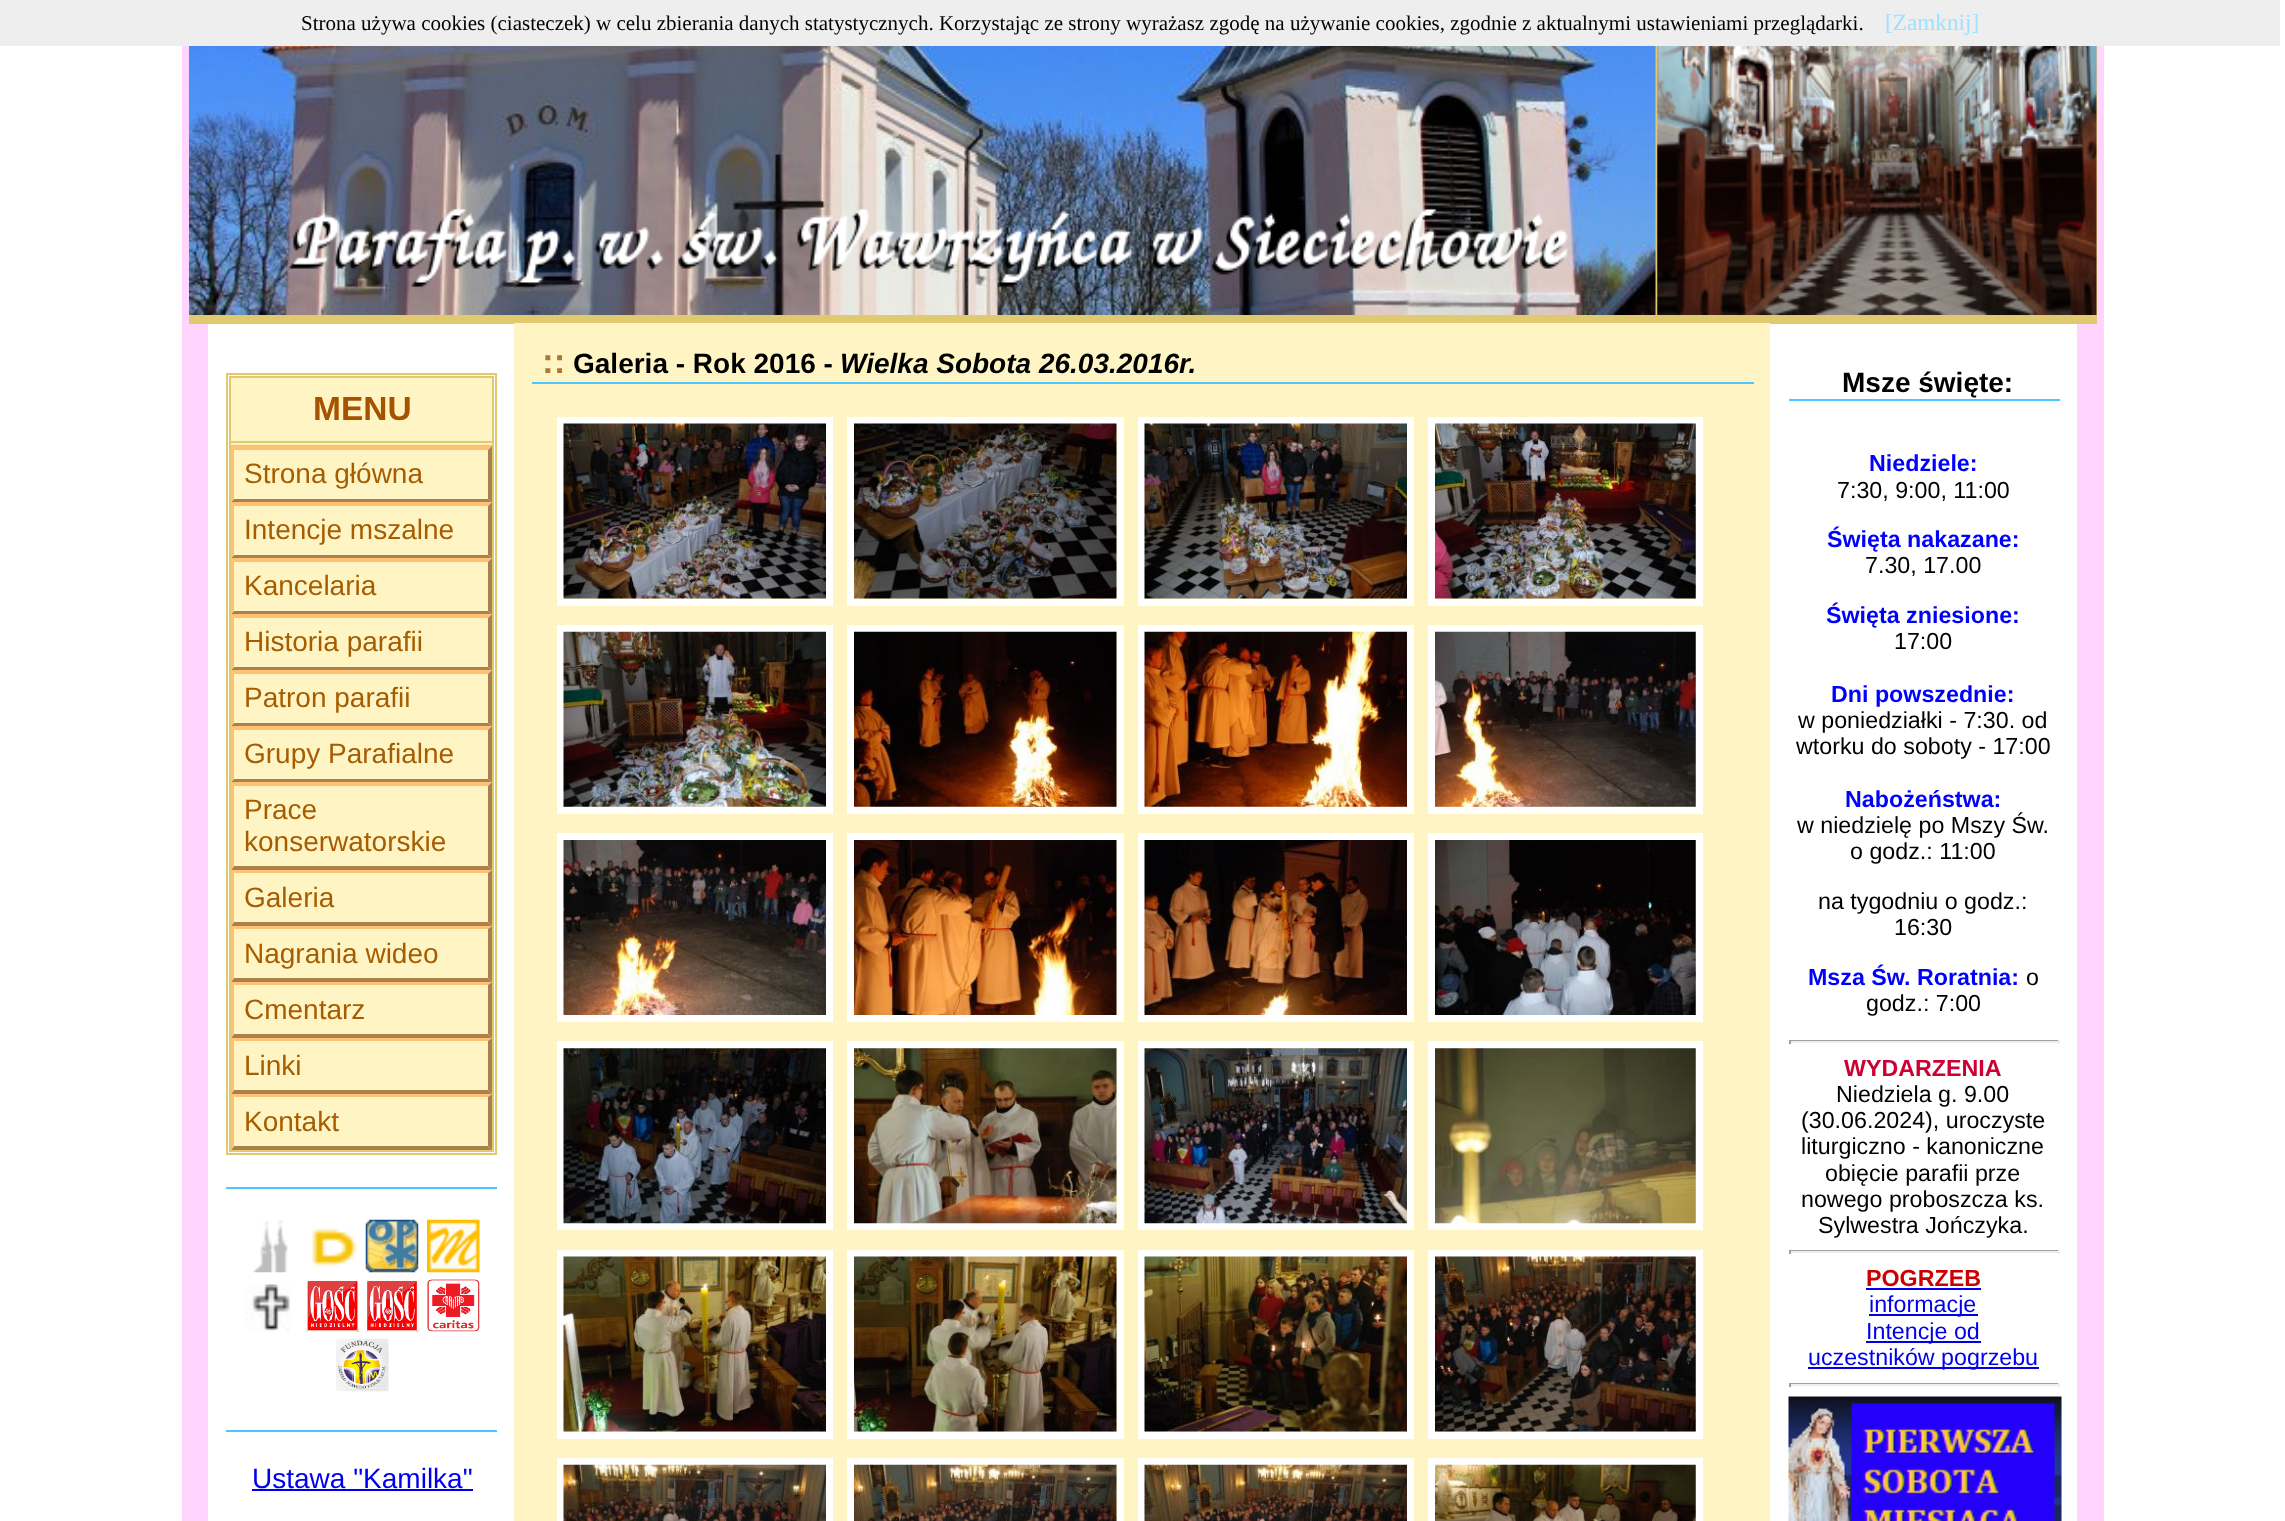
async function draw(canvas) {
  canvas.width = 2285
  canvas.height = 1521
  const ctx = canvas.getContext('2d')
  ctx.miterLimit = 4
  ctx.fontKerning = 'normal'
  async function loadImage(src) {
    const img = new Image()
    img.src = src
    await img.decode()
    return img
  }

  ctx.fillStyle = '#fff'
  ctx.fillRect(0, 0, 2285, 1521)
  ctx.fillStyle = '#eee'
  ctx.fillRect(0, 0, 2280, 46)
  ctx.font = '21px Liberation Serif'
  ctx.fillStyle = '#000'
  ctx.fillText('Strona używa cookies (ciasteczek) w celu zbierania danych statystycznych. Korzystając ze strony wyrażasz zgodę na używanie cookies, zgodnie z aktualnymi ustawieniami przeglądarki.', 301, 30)
  ctx.font = '23.25px Liberation Serif'
  ctx.fillStyle = '#9fe1ff'
  ctx.fillText('[Zamknij]', 1885, 30)
  ctx.fillStyle = '#e0c96f'
  ctx.fillRect(189, 46, 1908, 278)
  ctx.fillStyle = '#ffd5ff'
  ctx.fillRect(2097, 46, 7, 278)
  ctx.fillRect(182, 46, 7, 278)
  ctx.drawImage(await loadImage('image0.png'), 189, 46, 1467, 269)
  ctx.drawImage(await loadImage('image1.png'), 289, 208, 1279, 81)
  ctx.drawImage(await loadImage('image2.png'), 1657, 46, 440, 269)
  ctx.fillRect(182, 324, 1922, 1197)
  ctx.fillStyle = '#fff'
  ctx.fillRect(208, 324, 1869, 1197)
  ctx.fillStyle = '#fff5c4'
  ctx.fillRect(514, 323, 1256, 1198)
  ctx.fillStyle = '#4bc6ff'
  ctx.fillRect(532, 382, 1222, 2)
  ctx.font = 'bold 35px Liberation Sans'
  ctx.fillStyle = '#ac7835'
  ctx.fillText('::', 542, 373)
  ctx.font = 'bold 28px Liberation Sans'
  ctx.fillStyle = '#000'
  ctx.fillText('Galeria - Rok 2016 -', 573, 373)
  ctx.font = 'italic bold 28px Liberation Sans'
  ctx.fillText('Wielka Sobota 26.03.2016r.', 840, 373)
  ctx.strokeStyle = '#fff'
  ctx.lineWidth = 7
  ctx.strokeRect(560.5, 420.5, 269, 182)
  ctx.drawImage(await loadImage('image3.png'), 563, 423, 263, 176)
  ctx.strokeRect(850.5, 420.5, 270, 182)
  ctx.drawImage(await loadImage('image4.png'), 854, 423, 263, 176)
  ctx.strokeRect(1141.5, 420.5, 269, 182)
  ctx.drawImage(await loadImage('image5.png'), 1144, 423, 263, 176)
  ctx.strokeRect(1431.5, 420.5, 268, 182)
  ctx.drawImage(await loadImage('image6.png'), 1435, 423, 261, 176)
  ctx.strokeRect(560.5, 628.5, 269, 182)
  ctx.drawImage(await loadImage('image7.png'), 563, 631, 263, 176)
  ctx.strokeRect(850.5, 628.5, 270, 182)
  ctx.drawImage(await loadImage('image8.png'), 854, 631, 263, 176)
  ctx.strokeRect(1141.5, 628.5, 269, 182)
  ctx.drawImage(await loadImage('image9.png'), 1144, 631, 263, 176)
  ctx.strokeRect(1431.5, 628.5, 268, 182)
  ctx.drawImage(await loadImage('image10.png'), 1435, 631, 261, 176)
  ctx.strokeRect(560.5, 836.5, 269, 182)
  ctx.drawImage(await loadImage('image11.png'), 563, 840, 263, 175)
  ctx.strokeRect(850.5, 836.5, 270, 182)
  ctx.drawImage(await loadImage('image12.png'), 854, 840, 263, 175)
  ctx.strokeRect(1141.5, 836.5, 269, 182)
  ctx.drawImage(await loadImage('image13.png'), 1144, 840, 263, 175)
  ctx.strokeRect(1431.5, 836.5, 268, 182)
  ctx.drawImage(await loadImage('image14.png'), 1435, 840, 261, 175)
  ctx.strokeRect(560.5, 1044.5, 269, 182)
  ctx.drawImage(await loadImage('image15.png'), 563, 1048, 263, 176)
  ctx.strokeRect(850.5, 1044.5, 270, 182)
  ctx.drawImage(await loadImage('image16.png'), 854, 1048, 263, 176)
  ctx.strokeRect(1141.5, 1044.5, 269, 182)
  ctx.drawImage(await loadImage('image17.png'), 1144, 1048, 263, 176)
  ctx.strokeRect(1431.5, 1044.5, 268, 182)
  ctx.drawImage(await loadImage('image18.png'), 1435, 1048, 261, 176)
  ctx.strokeRect(560.5, 1253.5, 269, 182)
  ctx.drawImage(await loadImage('image19.png'), 563, 1256, 263, 176)
  ctx.strokeRect(850.5, 1253.5, 270, 182)
  ctx.drawImage(await loadImage('image20.png'), 854, 1256, 263, 176)
  ctx.strokeRect(1141.5, 1253.5, 269, 182)
  ctx.drawImage(await loadImage('image21.png'), 1144, 1256, 263, 176)
  ctx.strokeRect(1431.5, 1253.5, 268, 182)
  ctx.drawImage(await loadImage('image22.png'), 1435, 1256, 261, 176)
  ctx.strokeRect(560.5, 1461.5, 269, 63)
  ctx.drawImage(await loadImage('image23.png'), 563, 1464, 263, 57)
  ctx.strokeRect(850.5, 1461.5, 270, 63)
  ctx.drawImage(await loadImage('image24.png'), 854, 1464, 263, 57)
  ctx.strokeRect(1141.5, 1461.5, 269, 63)
  ctx.drawImage(await loadImage('image25.png'), 1144, 1464, 263, 57)
  ctx.strokeRect(1431.5, 1461.5, 268, 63)
  ctx.drawImage(await loadImage('image26.png'), 1435, 1464, 261, 57)
  ctx.strokeStyle = '#e0c96f'
  ctx.lineWidth = 2
  ctx.strokeRect(227, 374, 269, 780)
  ctx.strokeRect(230, 377, 263, 774)
  ctx.fillStyle = '#fff5c4'
  ctx.fillRect(231, 378, 261, 67)
  ctx.fillStyle = '#e0c96f'
  ctx.fillRect(231, 441, 261, 2)
  ctx.fillRect(231, 445, 261, 1)
  ctx.font = 'bold 33.5px Liberation Sans'
  ctx.fillStyle = '#a65200'
  ctx.fillText('MENU', 313, 420)
  ctx.fillStyle = '#fff5c4'
  ctx.fillRect(231, 446, 261, 704)
  ctx.fillStyle = '#ffc173'
  ctx.beginPath()
  ctx.moveTo(231, 446)
  ctx.lineTo(492, 446)
  ctx.lineTo(488, 450)
  ctx.lineTo(234, 450)
  ctx.closePath()
  ctx.fill()
  ctx.fillStyle = '#aa814d'
  ctx.beginPath()
  ctx.moveTo(492, 446)
  ctx.lineTo(492, 502)
  ctx.lineTo(488, 499)
  ctx.lineTo(488, 450)
  ctx.closePath()
  ctx.fill()
  ctx.beginPath()
  ctx.moveTo(492, 502)
  ctx.lineTo(231, 502)
  ctx.lineTo(234, 499)
  ctx.lineTo(488, 499)
  ctx.closePath()
  ctx.fill()
  ctx.fillStyle = '#ffc173'
  ctx.beginPath()
  ctx.moveTo(231, 502)
  ctx.lineTo(231, 446)
  ctx.lineTo(234, 450)
  ctx.lineTo(234, 499)
  ctx.closePath()
  ctx.fill()
  ctx.font = '28px Liberation Sans'
  ctx.fillStyle = '#a65c00'
  ctx.fillText('Strona główna', 244, 483)
  ctx.fillStyle = '#ffc173'
  ctx.beginPath()
  ctx.moveTo(231, 502)
  ctx.lineTo(492, 502)
  ctx.lineTo(488, 506)
  ctx.lineTo(234, 506)
  ctx.closePath()
  ctx.fill()
  ctx.fillStyle = '#aa814d'
  ctx.beginPath()
  ctx.moveTo(492, 502)
  ctx.lineTo(492, 558)
  ctx.lineTo(488, 555)
  ctx.lineTo(488, 506)
  ctx.closePath()
  ctx.fill()
  ctx.beginPath()
  ctx.moveTo(492, 558)
  ctx.lineTo(231, 558)
  ctx.lineTo(234, 555)
  ctx.lineTo(488, 555)
  ctx.closePath()
  ctx.fill()
  ctx.fillStyle = '#ffc173'
  ctx.beginPath()
  ctx.moveTo(231, 558)
  ctx.lineTo(231, 502)
  ctx.lineTo(234, 506)
  ctx.lineTo(234, 555)
  ctx.closePath()
  ctx.fill()
  ctx.fillStyle = '#a65c00'
  ctx.fillText('Intencje mszalne', 244, 539)
  ctx.fillStyle = '#ffc173'
  ctx.beginPath()
  ctx.moveTo(231, 558)
  ctx.lineTo(492, 558)
  ctx.lineTo(488, 562)
  ctx.lineTo(234, 562)
  ctx.closePath()
  ctx.fill()
  ctx.fillStyle = '#aa814d'
  ctx.beginPath()
  ctx.moveTo(492, 558)
  ctx.lineTo(492, 614)
  ctx.lineTo(488, 611)
  ctx.lineTo(488, 562)
  ctx.closePath()
  ctx.fill()
  ctx.beginPath()
  ctx.moveTo(492, 614)
  ctx.lineTo(231, 614)
  ctx.lineTo(234, 611)
  ctx.lineTo(488, 611)
  ctx.closePath()
  ctx.fill()
  ctx.fillStyle = '#ffc173'
  ctx.beginPath()
  ctx.moveTo(231, 614)
  ctx.lineTo(231, 558)
  ctx.lineTo(234, 562)
  ctx.lineTo(234, 611)
  ctx.closePath()
  ctx.fill()
  ctx.fillStyle = '#a65c00'
  ctx.fillText('Kancelaria', 244, 595)
  ctx.fillStyle = '#ffc173'
  ctx.beginPath()
  ctx.moveTo(231, 614)
  ctx.lineTo(492, 614)
  ctx.lineTo(488, 618)
  ctx.lineTo(234, 618)
  ctx.closePath()
  ctx.fill()
  ctx.fillStyle = '#aa814d'
  ctx.beginPath()
  ctx.moveTo(492, 614)
  ctx.lineTo(492, 670)
  ctx.lineTo(488, 667)
  ctx.lineTo(488, 618)
  ctx.closePath()
  ctx.fill()
  ctx.beginPath()
  ctx.moveTo(492, 670)
  ctx.lineTo(231, 670)
  ctx.lineTo(234, 667)
  ctx.lineTo(488, 667)
  ctx.closePath()
  ctx.fill()
  ctx.fillStyle = '#ffc173'
  ctx.beginPath()
  ctx.moveTo(231, 670)
  ctx.lineTo(231, 614)
  ctx.lineTo(234, 618)
  ctx.lineTo(234, 667)
  ctx.closePath()
  ctx.fill()
  ctx.fillStyle = '#a65c00'
  ctx.fillText('Historia parafii', 244, 651)
  ctx.fillStyle = '#ffc173'
  ctx.beginPath()
  ctx.moveTo(231, 670)
  ctx.lineTo(492, 670)
  ctx.lineTo(488, 674)
  ctx.lineTo(234, 674)
  ctx.closePath()
  ctx.fill()
  ctx.fillStyle = '#aa814d'
  ctx.beginPath()
  ctx.moveTo(492, 670)
  ctx.lineTo(492, 726)
  ctx.lineTo(488, 723)
  ctx.lineTo(488, 674)
  ctx.closePath()
  ctx.fill()
  ctx.beginPath()
  ctx.moveTo(492, 726)
  ctx.lineTo(231, 726)
  ctx.lineTo(234, 723)
  ctx.lineTo(488, 723)
  ctx.closePath()
  ctx.fill()
  ctx.fillStyle = '#ffc173'
  ctx.beginPath()
  ctx.moveTo(231, 726)
  ctx.lineTo(231, 670)
  ctx.lineTo(234, 674)
  ctx.lineTo(234, 723)
  ctx.closePath()
  ctx.fill()
  ctx.fillStyle = '#a65c00'
  ctx.fillText('Patron parafii', 244, 707)
  ctx.fillStyle = '#ffc173'
  ctx.beginPath()
  ctx.moveTo(231, 726)
  ctx.lineTo(492, 726)
  ctx.lineTo(488, 730)
  ctx.lineTo(234, 730)
  ctx.closePath()
  ctx.fill()
  ctx.fillStyle = '#aa814d'
  ctx.beginPath()
  ctx.moveTo(492, 726)
  ctx.lineTo(492, 782)
  ctx.lineTo(488, 779)
  ctx.lineTo(488, 730)
  ctx.closePath()
  ctx.fill()
  ctx.beginPath()
  ctx.moveTo(492, 782)
  ctx.lineTo(231, 782)
  ctx.lineTo(234, 779)
  ctx.lineTo(488, 779)
  ctx.closePath()
  ctx.fill()
  ctx.fillStyle = '#ffc173'
  ctx.beginPath()
  ctx.moveTo(231, 782)
  ctx.lineTo(231, 726)
  ctx.lineTo(234, 730)
  ctx.lineTo(234, 779)
  ctx.closePath()
  ctx.fill()
  ctx.fillStyle = '#a65c00'
  ctx.fillText('Grupy Parafialne', 244, 763)
  ctx.fillStyle = '#ffc173'
  ctx.beginPath()
  ctx.moveTo(231, 782)
  ctx.lineTo(492, 782)
  ctx.lineTo(488, 786)
  ctx.lineTo(234, 786)
  ctx.closePath()
  ctx.fill()
  ctx.fillStyle = '#aa814d'
  ctx.beginPath()
  ctx.moveTo(492, 782)
  ctx.lineTo(492, 870)
  ctx.lineTo(488, 866)
  ctx.lineTo(488, 786)
  ctx.closePath()
  ctx.fill()
  ctx.beginPath()
  ctx.moveTo(492, 870)
  ctx.lineTo(231, 870)
  ctx.lineTo(234, 866)
  ctx.lineTo(488, 866)
  ctx.closePath()
  ctx.fill()
  ctx.fillStyle = '#ffc173'
  ctx.beginPath()
  ctx.moveTo(231, 870)
  ctx.lineTo(231, 782)
  ctx.lineTo(234, 786)
  ctx.lineTo(234, 866)
  ctx.closePath()
  ctx.fill()
  ctx.fillStyle = '#a65c00'
  ctx.fillText('Prace', 244, 819)
  ctx.fillText('konserwatorskie', 244, 851)
  ctx.fillStyle = '#ffc173'
  ctx.beginPath()
  ctx.moveTo(231, 870)
  ctx.lineTo(492, 870)
  ctx.lineTo(488, 873)
  ctx.lineTo(234, 873)
  ctx.closePath()
  ctx.fill()
  ctx.fillStyle = '#aa814d'
  ctx.beginPath()
  ctx.moveTo(492, 870)
  ctx.lineTo(492, 926)
  ctx.lineTo(488, 922)
  ctx.lineTo(488, 873)
  ctx.closePath()
  ctx.fill()
  ctx.beginPath()
  ctx.moveTo(492, 926)
  ctx.lineTo(231, 926)
  ctx.lineTo(234, 922)
  ctx.lineTo(488, 922)
  ctx.closePath()
  ctx.fill()
  ctx.fillStyle = '#ffc173'
  ctx.beginPath()
  ctx.moveTo(231, 926)
  ctx.lineTo(231, 870)
  ctx.lineTo(234, 873)
  ctx.lineTo(234, 922)
  ctx.closePath()
  ctx.fill()
  ctx.fillStyle = '#a65c00'
  ctx.fillText('Galeria', 244, 907)
  ctx.fillStyle = '#ffc173'
  ctx.beginPath()
  ctx.moveTo(231, 926)
  ctx.lineTo(492, 926)
  ctx.lineTo(488, 929)
  ctx.lineTo(234, 929)
  ctx.closePath()
  ctx.fill()
  ctx.fillStyle = '#aa814d'
  ctx.beginPath()
  ctx.moveTo(492, 926)
  ctx.lineTo(492, 982)
  ctx.lineTo(488, 978)
  ctx.lineTo(488, 929)
  ctx.closePath()
  ctx.fill()
  ctx.beginPath()
  ctx.moveTo(492, 982)
  ctx.lineTo(231, 982)
  ctx.lineTo(234, 978)
  ctx.lineTo(488, 978)
  ctx.closePath()
  ctx.fill()
  ctx.fillStyle = '#ffc173'
  ctx.beginPath()
  ctx.moveTo(231, 982)
  ctx.lineTo(231, 926)
  ctx.lineTo(234, 929)
  ctx.lineTo(234, 978)
  ctx.closePath()
  ctx.fill()
  ctx.fillStyle = '#a65c00'
  ctx.fillText('Nagrania wideo', 244, 963)
  ctx.fillStyle = '#ffc173'
  ctx.beginPath()
  ctx.moveTo(231, 982)
  ctx.lineTo(492, 982)
  ctx.lineTo(488, 985)
  ctx.lineTo(234, 985)
  ctx.closePath()
  ctx.fill()
  ctx.fillStyle = '#aa814d'
  ctx.beginPath()
  ctx.moveTo(492, 982)
  ctx.lineTo(492, 1038)
  ctx.lineTo(488, 1034)
  ctx.lineTo(488, 985)
  ctx.closePath()
  ctx.fill()
  ctx.beginPath()
  ctx.moveTo(492, 1038)
  ctx.lineTo(231, 1038)
  ctx.lineTo(234, 1034)
  ctx.lineTo(488, 1034)
  ctx.closePath()
  ctx.fill()
  ctx.fillStyle = '#ffc173'
  ctx.beginPath()
  ctx.moveTo(231, 1038)
  ctx.lineTo(231, 982)
  ctx.lineTo(234, 985)
  ctx.lineTo(234, 1034)
  ctx.closePath()
  ctx.fill()
  ctx.fillStyle = '#a65c00'
  ctx.fillText('Cmentarz', 244, 1019)
  ctx.fillStyle = '#ffc173'
  ctx.beginPath()
  ctx.moveTo(231, 1038)
  ctx.lineTo(492, 1038)
  ctx.lineTo(488, 1041)
  ctx.lineTo(234, 1041)
  ctx.closePath()
  ctx.fill()
  ctx.fillStyle = '#aa814d'
  ctx.beginPath()
  ctx.moveTo(492, 1038)
  ctx.lineTo(492, 1094)
  ctx.lineTo(488, 1090)
  ctx.lineTo(488, 1041)
  ctx.closePath()
  ctx.fill()
  ctx.beginPath()
  ctx.moveTo(492, 1094)
  ctx.lineTo(231, 1094)
  ctx.lineTo(234, 1090)
  ctx.lineTo(488, 1090)
  ctx.closePath()
  ctx.fill()
  ctx.fillStyle = '#ffc173'
  ctx.beginPath()
  ctx.moveTo(231, 1094)
  ctx.lineTo(231, 1038)
  ctx.lineTo(234, 1041)
  ctx.lineTo(234, 1090)
  ctx.closePath()
  ctx.fill()
  ctx.fillStyle = '#a65c00'
  ctx.fillText('Linki', 244, 1075)
  ctx.fillStyle = '#ffc173'
  ctx.beginPath()
  ctx.moveTo(231, 1094)
  ctx.lineTo(492, 1094)
  ctx.lineTo(488, 1097)
  ctx.lineTo(234, 1097)
  ctx.closePath()
  ctx.fill()
  ctx.fillStyle = '#aa814d'
  ctx.beginPath()
  ctx.moveTo(492, 1094)
  ctx.lineTo(492, 1150)
  ctx.lineTo(488, 1146)
  ctx.lineTo(488, 1097)
  ctx.closePath()
  ctx.fill()
  ctx.beginPath()
  ctx.moveTo(492, 1150)
  ctx.lineTo(231, 1150)
  ctx.lineTo(234, 1146)
  ctx.lineTo(488, 1146)
  ctx.closePath()
  ctx.fill()
  ctx.fillStyle = '#ffc173'
  ctx.beginPath()
  ctx.moveTo(231, 1150)
  ctx.lineTo(231, 1094)
  ctx.lineTo(234, 1097)
  ctx.lineTo(234, 1146)
  ctx.closePath()
  ctx.fill()
  ctx.fillStyle = '#a65c00'
  ctx.fillText('Kontakt', 244, 1131)
  ctx.fillStyle = '#4bc6ff'
  ctx.fillRect(226, 1187, 271, 2)
  ctx.fillRect(226, 1430, 271, 2)
  ctx.drawImage(await loadImage('image27.png'), 253, 1220, 35, 53)
  ctx.drawImage(await loadImage('image28.png'), 311, 1228, 46, 39)
  ctx.drawImage(await loadImage('image29.png'), 365, 1219, 54, 54)
  ctx.drawImage(await loadImage('image30.png'), 427, 1219, 53, 54)
  ctx.drawImage(await loadImage('image31.png'), 245, 1284, 46, 48)
  ctx.drawImage(await loadImage('image32.png'), 306, 1279, 53, 53)
  ctx.drawImage(await loadImage('image33.png'), 365, 1280, 54, 52)
  ctx.drawImage(await loadImage('image34.png'), 427, 1279, 53, 53)
  ctx.drawImage(await loadImage('image35.png'), 336, 1338, 53, 54)
  ctx.fillStyle = '#00e'
  ctx.fillText('Ustawa "Kamilka"', 252, 1488)
  ctx.fillRect(252, 1489, 221, 2)
  ctx.fillStyle = '#4bc6ff'
  ctx.fillRect(1789, 399, 271, 2)
  ctx.font = 'bold 28px Liberation Sans'
  ctx.fillStyle = '#000'
  ctx.fillText('Msze święte:', 1842, 392)
  ctx.font = 'bold 23.25px Liberation Sans'
  ctx.fillStyle = '#00f'
  ctx.fillText('Niedziele:', 1869, 471)
  ctx.font = '23.25px Liberation Sans'
  ctx.fillStyle = '#000'
  ctx.fillText('7:30, 9:00, 11:00', 1837, 498)
  ctx.font = 'bold 23.25px Liberation Sans'
  ctx.fillStyle = '#00f'
  ctx.fillText('Święta nakazane:', 1827, 547)
  ctx.font = '23.25px Liberation Sans'
  ctx.fillStyle = '#000'
  ctx.fillText('7.30, 17.00', 1865, 573)
  ctx.font = 'bold 23.25px Liberation Sans'
  ctx.fillStyle = '#00f'
  ctx.fillText('Święta zniesione:', 1826, 623)
  ctx.font = '23.25px Liberation Sans'
  ctx.fillStyle = '#000'
  ctx.fillText('17:00', 1894, 649)
  ctx.font = 'bold 23.25px Liberation Sans'
  ctx.fillStyle = '#00f'
  ctx.fillText('Dni powszednie:', 1831, 702)
  ctx.font = '23.25px Liberation Sans'
  ctx.fillStyle = '#000'
  ctx.fillText('w poniedziałki - 7:30. od', 1798, 728)
  ctx.fillText('wtorku do soboty - 17:00', 1796, 754)
  ctx.font = 'bold 23.25px Liberation Sans'
  ctx.fillStyle = '#00f'
  ctx.fillText('Nabożeństwa:', 1845, 807)
  ctx.font = '23.25px Liberation Sans'
  ctx.fillStyle = '#000'
  ctx.fillText('w niedzielę po Mszy Św.', 1797, 833)
  ctx.fillText('o godz.: 11:00', 1850, 859)
  ctx.fillText('na tygodniu o godz.:', 1818, 909)
  ctx.fillText('16:30', 1894, 935)
  ctx.font = 'bold 23.25px Liberation Sans'
  ctx.fillStyle = '#00f'
  ctx.fillText('Msza Św. Roratnia:', 1808, 985)
  ctx.font = '23.25px Liberation Sans'
  ctx.fillStyle = '#000'
  ctx.fillText('o', 2026, 985)
  ctx.fillText('godz.: 7:00', 1866, 1011)
  ctx.fillStyle = '#9f9f9f'
  ctx.fillRect(1789, 1040, 271, 1)
  ctx.fillStyle = '#eee'
  ctx.fillRect(2058, 1040, 2, 4)
  ctx.fillRect(1789, 1041, 271, 2)
  ctx.fillStyle = '#9f9f9f'
  ctx.fillRect(1789, 1040, 2, 4)
  ctx.font = 'bold 23.25px Liberation Sans'
  ctx.fillStyle = '#c03'
  ctx.fillText('WYDARZENIA', 1844, 1076)
  ctx.font = '23.25px Liberation Sans'
  ctx.fillStyle = '#000'
  ctx.fillText('Niedziela g. 9.00', 1836, 1102)
  ctx.fillText('(30.06.2024), uroczyste', 1801, 1128)
  ctx.fillText('liturgiczno - kanoniczne', 1801, 1154)
  ctx.fillText('obięcie parafii prze', 1825, 1181)
  ctx.fillText('nowego proboszcza ks.', 1801, 1207)
  ctx.fillText('Sylwestra Jończyka.', 1818, 1233)
  ctx.fillStyle = '#9f9f9f'
  ctx.fillRect(1789, 1250, 271, 1)
  ctx.fillStyle = '#eee'
  ctx.fillRect(2058, 1250, 2, 4)
  ctx.fillRect(1789, 1251, 271, 2)
  ctx.fillStyle = '#9f9f9f'
  ctx.fillRect(1789, 1250, 2, 4)
  ctx.font = 'bold 23.25px Liberation Sans'
  ctx.fillStyle = '#c00'
  ctx.fillText('POGRZEB', 1866, 1286)
  ctx.fillStyle = '#00e'
  ctx.fillRect(1866, 1288, 115, 2)
  ctx.fillRect(1869, 1314, 109, 2)
  ctx.font = '23.25px Liberation Sans'
  ctx.fillText('informacje', 1869, 1312)
  ctx.fillRect(1866, 1341, 115, 2)
  ctx.fillText('Intencje od', 1866, 1339)
  ctx.fillRect(1808, 1367, 231, 2)
  ctx.fillText('uczestników pogrzebu', 1808, 1365)
  ctx.fillStyle = '#9f9f9f'
  ctx.fillRect(1789, 1383, 271, 1)
  ctx.fillStyle = '#eee'
  ctx.fillRect(2058, 1383, 2, 4)
  ctx.fillRect(1789, 1384, 271, 2)
  ctx.fillStyle = '#9f9f9f'
  ctx.fillRect(1789, 1383, 2, 4)
  ctx.drawImage(await loadImage('image36.png'), 1788, 1396, 274, 125)
}

draw(document.querySelector('canvas'))
